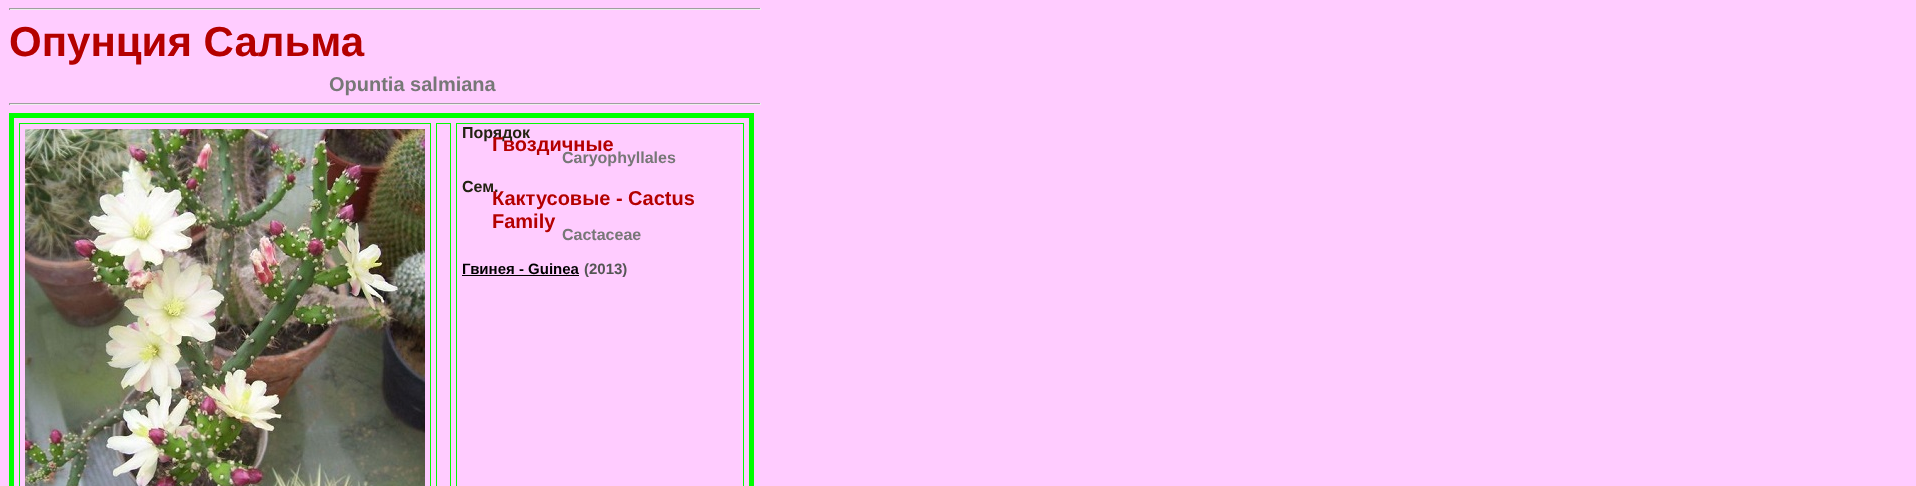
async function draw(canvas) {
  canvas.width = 1916
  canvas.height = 486
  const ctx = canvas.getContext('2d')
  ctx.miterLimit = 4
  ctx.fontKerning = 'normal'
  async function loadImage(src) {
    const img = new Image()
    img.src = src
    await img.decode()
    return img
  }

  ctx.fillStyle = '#fcf'
  ctx.fillRect(0, 0, 1916, 486)
  ctx.fillStyle = '#9f9f9f'
  ctx.fillRect(9, 8, 752, 1)
  ctx.fillStyle = '#eee'
  ctx.fillRect(760, 8, 1, 2)
  ctx.fillRect(9, 9, 752, 1)
  ctx.fillStyle = '#9f9f9f'
  ctx.fillRect(9, 8, 1, 2)
  ctx.font = 'bold 42px Liberation Sans'
  ctx.fillStyle = '#b40000'
  ctx.fillText('Опунция Сальма', 9, 56)
  ctx.font = 'bold 20px Liberation Sans'
  ctx.fillStyle = '#777'
  ctx.fillText('Opuntia salmiana', 329, 91)
  ctx.fillStyle = '#9f9f9f'
  ctx.fillRect(9, 103, 752, 1)
  ctx.fillStyle = '#eee'
  ctx.fillRect(760, 103, 1, 2)
  ctx.fillRect(9, 104, 752, 1)
  ctx.fillStyle = '#9f9f9f'
  ctx.fillRect(9, 103, 1, 2)
  ctx.strokeStyle = '#0f0'
  ctx.lineWidth = 5
  ctx.strokeRect(11.5, 115.5, 740, 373)
  ctx.lineWidth = 1
  ctx.strokeRect(19.5, 123.5, 411, 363)
  ctx.drawImage(await loadImage('image0.png'), 25, 129, 400, 357)
  ctx.strokeRect(436.5, 123.5, 14, 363)
  ctx.strokeRect(456.5, 123.5, 287, 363)
  ctx.font = 'bold 16px Liberation Sans'
  ctx.fillStyle = '#221'
  ctx.fillText('Порядок', 462, 138)
  ctx.font = 'bold 20px Liberation Sans'
  ctx.fillStyle = '#b40000'
  ctx.fillText('Гвоздичные', 492, 151)
  ctx.font = 'bold 16px Liberation Sans'
  ctx.fillStyle = '#777'
  ctx.fillText('Caryophyllales', 562, 163)
  ctx.fillStyle = '#221'
  ctx.fillText('Сем.', 462, 192)
  ctx.font = 'bold 20px Liberation Sans'
  ctx.fillStyle = '#b40000'
  ctx.fillText('Кактусовые - Cactus', 492, 205)
  ctx.fillText('Family', 492, 228)
  ctx.font = 'bold 16px Liberation Sans'
  ctx.fillStyle = '#777'
  ctx.fillText('Cactaceae', 562, 240)
  ctx.font = 'bold 15px Liberation Sans'
  ctx.fillStyle = '#000'
  ctx.fillText('Гвинея - Guinea', 462, 274)
  ctx.fillRect(462, 275, 117, 1)
  ctx.fillStyle = '#555'
  ctx.fillText('(2013)', 584, 274)
}

draw(document.querySelector('canvas'))
